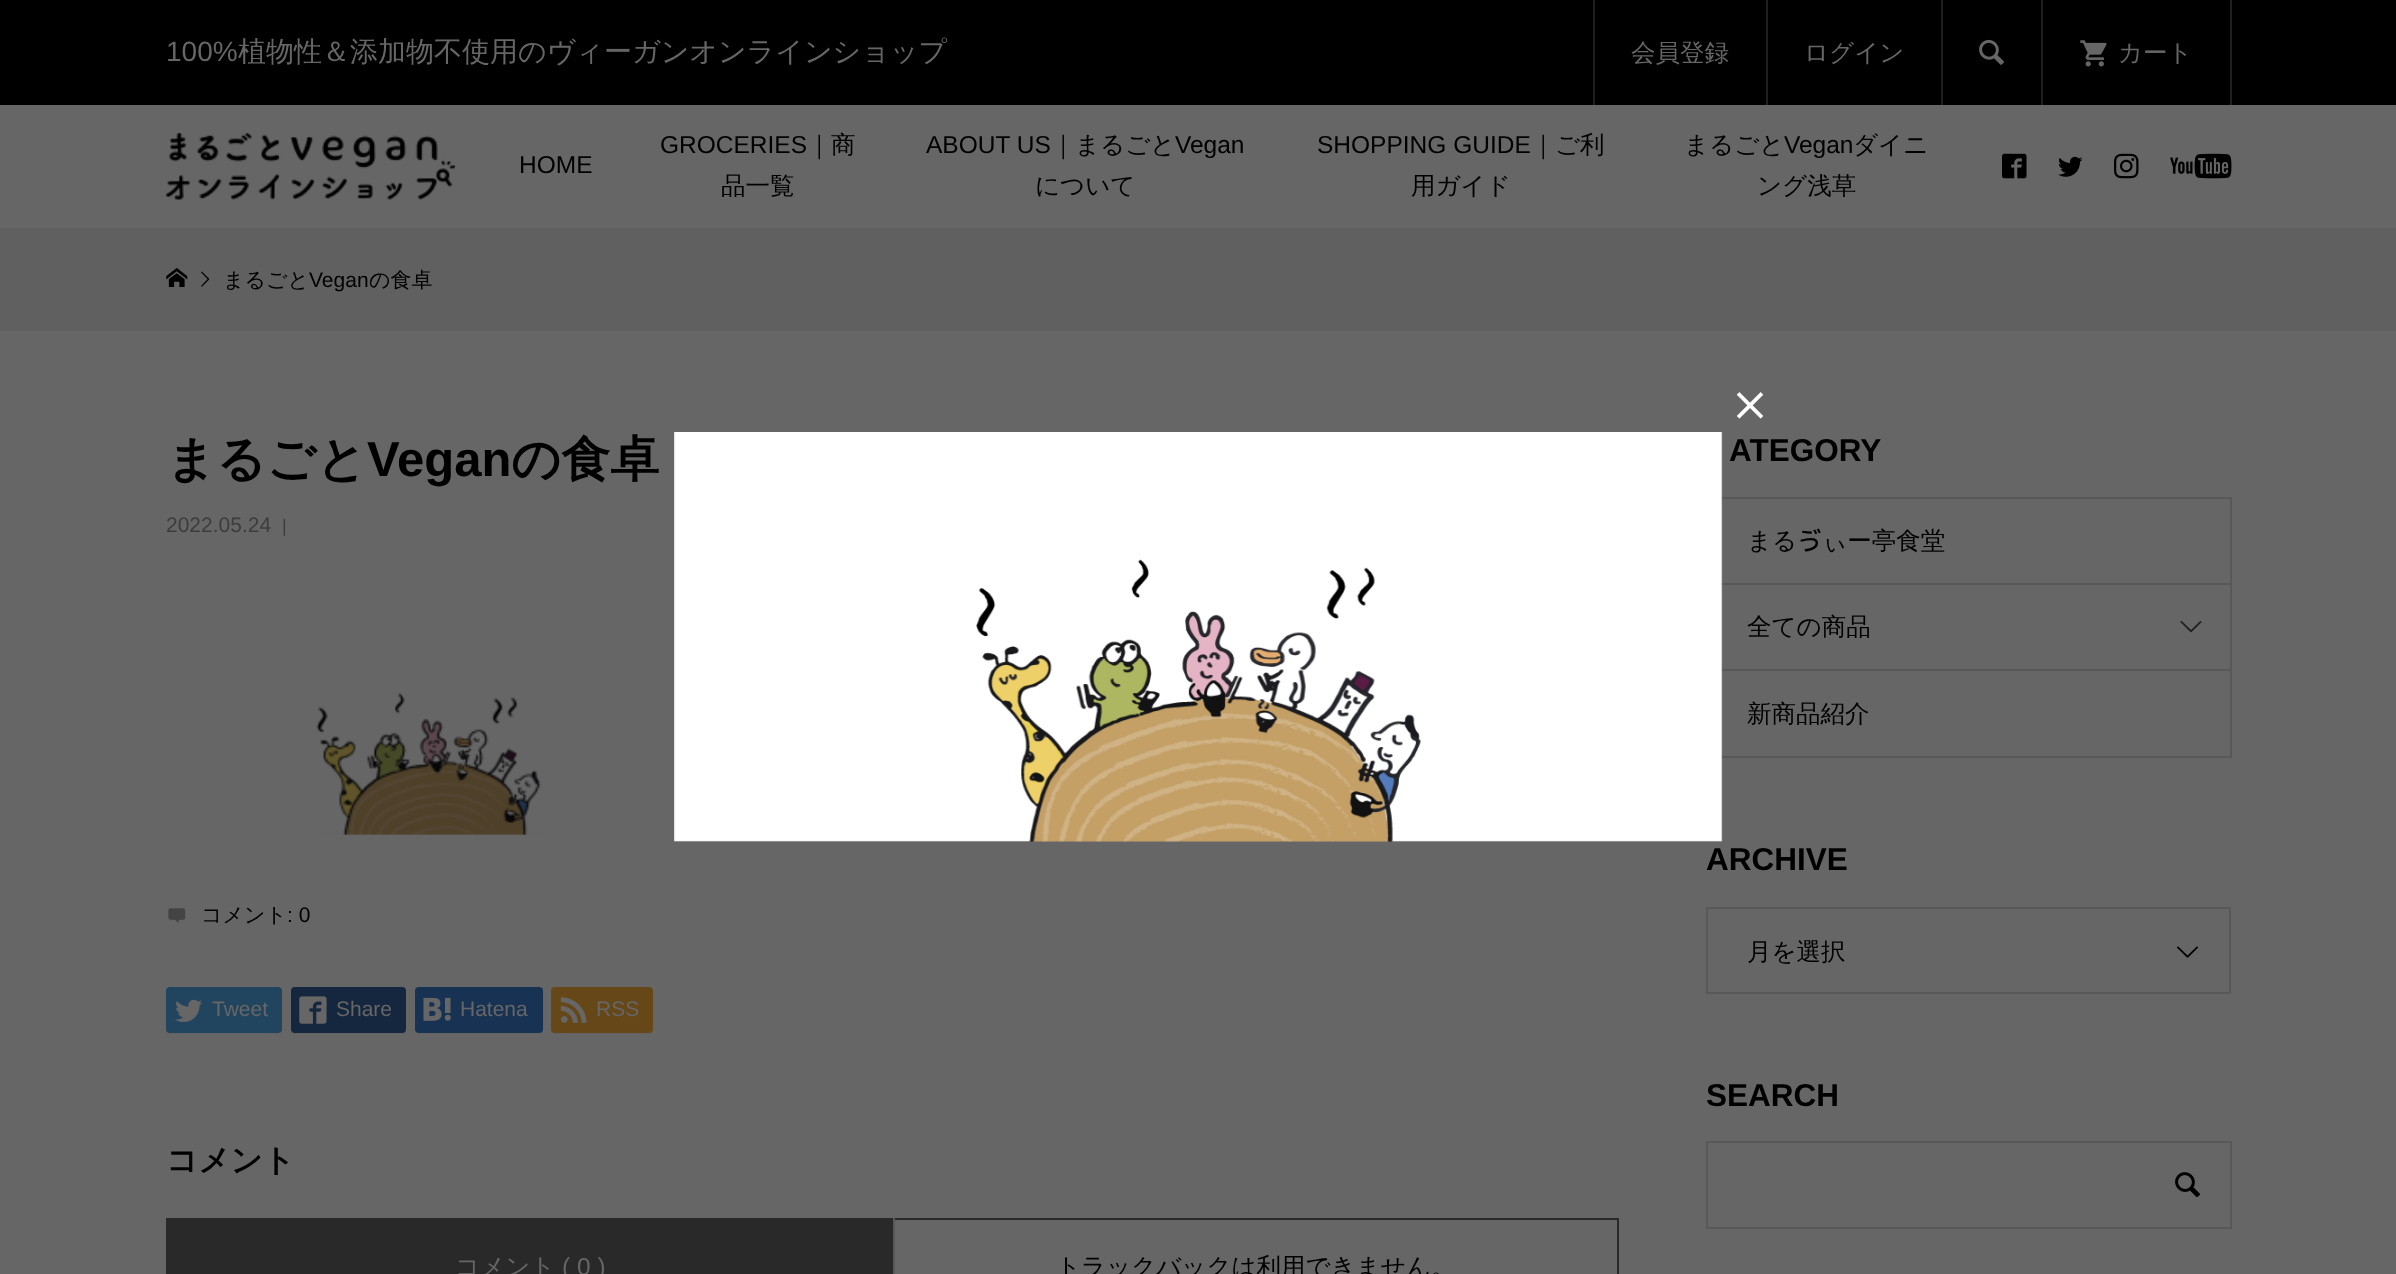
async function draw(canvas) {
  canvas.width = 2396
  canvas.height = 1274
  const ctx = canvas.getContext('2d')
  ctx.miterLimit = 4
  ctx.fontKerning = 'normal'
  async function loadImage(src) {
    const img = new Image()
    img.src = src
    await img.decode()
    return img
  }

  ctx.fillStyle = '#666'
  ctx.fillRect(0, 0, 2396, 1274)
  ctx.fillStyle = '#000'
  ctx.fillRect(0, 0, 2396, 105)
  ctx.font = '28px Liberation Sans'
  ctx.fillStyle = '#666'
  ctx.fillText('100%', 166, 61)
  ctx.font = '500 28px WenQuanYi Zen Hei'
  ctx.fillText('植物性＆添加物不使用のヴィーガンオンラインショップ', 238, 61)
  ctx.fillStyle = '#1f1f1f'
  ctx.fillRect(2230, 0, 2, 105)
  ctx.fillRect(1593, 0, 2, 105)
  ctx.font = '500 24.5px WenQuanYi Zen Hei'
  ctx.fillStyle = '#666'
  ctx.fillText('会員登録', 1631, 61)
  ctx.fillStyle = '#1f1f1f'
  ctx.fillRect(1766, 0, 2, 105)
  ctx.fillStyle = '#666'
  ctx.fillText('ログイン', 1804, 61)
  ctx.fillStyle = '#1f1f1f'
  ctx.fillRect(1941, 0, 2, 105)
  ctx.drawImage(await loadImage('image0.png'), 1979, 39, 25, 26)
  ctx.fillRect(2041, 0, 2, 105)
  ctx.drawImage(await loadImage('image1.png'), 2080, 40, 27, 27)
  ctx.fillStyle = '#666'
  ctx.fillText('カート', 2118, 61)
  ctx.drawImage(await loadImage('image2.png'), 166, 133, 289, 67)
  ctx.font = '24.5px Liberation Sans'
  ctx.fillStyle = '#000'
  ctx.fillText('HOME', 519, 173)
  ctx.fillText('GROCERIES', 660, 153)
  ctx.font = '500 24.5px WenQuanYi Zen Hei'
  ctx.fillText('｜商', 807, 153)
  ctx.fillText('品一覧', 721, 194)
  ctx.font = '24.5px Liberation Sans'
  ctx.fillText('ABOUT US', 926, 153)
  ctx.font = '500 24.5px WenQuanYi Zen Hei'
  ctx.fillText('｜まるごと', 1051, 153)
  ctx.font = '24.5px Liberation Sans'
  ctx.fillText('Vegan', 1175, 153)
  ctx.font = '500 24.5px WenQuanYi Zen Hei'
  ctx.fillText('について', 1035, 194)
  ctx.font = '24.5px Liberation Sans'
  ctx.fillText('SHOPPING GUIDE', 1317, 153)
  ctx.font = '500 24.5px WenQuanYi Zen Hei'
  ctx.fillText('｜ご利', 1531, 153)
  ctx.fillText('用ガイド', 1411, 194)
  ctx.fillText('まるごと', 1684, 153)
  ctx.font = '24.5px Liberation Sans'
  ctx.fillText('Vegan', 1784, 153)
  ctx.font = '500 24.5px WenQuanYi Zen Hei'
  ctx.fillText('ダイニ', 1853, 153)
  ctx.fillText('ング浅草', 1757, 194)
  ctx.drawImage(await loadImage('image3.png'), 2002, 153, 25, 26)
  ctx.drawImage(await loadImage('image4.png'), 2058, 156, 25, 21)
  ctx.drawImage(await loadImage('image5.png'), 2114, 153, 25, 26)
  ctx.drawImage(await loadImage('image6.png'), 2170, 153, 62, 26)
  ctx.fillStyle = '#606060'
  ctx.fillRect(0, 228, 2396, 103)
  ctx.drawImage(await loadImage('image7.png'), 166, 268, 22, 19)
  ctx.drawImage(await loadImage('image8.png'), 201, 271, 9, 16)
  ctx.font = '500 21px WenQuanYi Zen Hei'
  ctx.fillStyle = '#000'
  ctx.fillText('まるごと', 223, 287)
  ctx.font = '21px Liberation Sans'
  ctx.fillText('Vegan', 309, 287)
  ctx.font = '500 21px WenQuanYi Zen Hei'
  ctx.fillText('の食卓', 369, 287)
  ctx.font = 'bold 49px WenQuanYi Zen Hei'
  ctx.fillText('まるごと', 166, 476)
  ctx.font = 'bold 49px Liberation Sans'
  ctx.fillText('Vegan', 367, 476)
  ctx.font = 'bold 49px WenQuanYi Zen Hei'
  ctx.fillText('の食卓', 511, 476)
  ctx.font = '21px Liberation Sans'
  ctx.fillStyle = '#3d3d3d'
  ctx.fillText('2022.05.24', 166, 532)
  ctx.font = '18px Liberation Sans'
  ctx.fillText('|', 282, 532)
  ctx.drawImage(await loadImage('image9.png'), 316, 692, 226, 143)
  ctx.drawImage(await loadImage('image10.png'), 168, 908, 18, 15)
  ctx.font = '500 21px WenQuanYi Zen Hei'
  ctx.fillStyle = '#000'
  ctx.fillText('コメント', 201, 922)
  ctx.font = '21px Liberation Sans'
  ctx.fillText(': 0', 287, 922)
  ctx.fillStyle = '#636363'
  ctx.beginPath()
  ctx.moveTo(166, 992)
  ctx.lineTo(166, 1018)
  ctx.bezierCurveTo(166, 1038, 164, 1034, 188, 1034)
  ctx.lineTo(260, 1034)
  ctx.bezierCurveTo(284, 1034, 282, 1038, 282, 1018)
  ctx.lineTo(282, 992)
  ctx.lineTo(282, 1029)
  ctx.bezierCurveTo(282, 1031, 280, 1032, 278, 1032)
  ctx.lineTo(170, 1032)
  ctx.bezierCurveTo(168, 1032, 166, 1031, 166, 1029)
  ctx.closePath()
  ctx.fill()
  ctx.fillStyle = '#22455f'
  ctx.beginPath()
  ctx.roundRect(166, 987, 116, 46, 4)
  ctx.fill()
  ctx.drawImage(await loadImage('image11.png'), 175, 999, 28, 23)
  ctx.fillStyle = '#666'
  ctx.fillText('Tweet', 212, 1016)
  ctx.fillStyle = '#636363'
  ctx.beginPath()
  ctx.moveTo(291, 1031)
  ctx.bezierCurveTo(292, 1033, 293, 1034, 295, 1034)
  ctx.lineTo(402, 1034)
  ctx.bezierCurveTo(404, 1034, 406, 1032, 406, 1030)
  ctx.lineTo(406, 1029)
  ctx.bezierCurveTo(406, 1031, 404, 1032, 402, 1032)
  ctx.lineTo(294, 1032)
  ctx.closePath()
  ctx.fill()
  ctx.fillStyle = '#15273e'
  ctx.beginPath()
  ctx.roundRect(291, 987, 115, 46, 4)
  ctx.fill()
  ctx.drawImage(await loadImage('image12.png'), 299, 996, 28, 28)
  ctx.fillStyle = '#666'
  ctx.fillText('Share', 336, 1016)
  ctx.fillStyle = '#636363'
  ctx.beginPath()
  ctx.moveTo(415, 1030)
  ctx.bezierCurveTo(415, 1032, 417, 1034, 419, 1034)
  ctx.lineTo(539, 1034)
  ctx.bezierCurveTo(541, 1034, 543, 1032, 543, 1030)
  ctx.lineTo(543, 993)
  ctx.lineTo(542, 991)
  ctx.lineTo(542, 1029)
  ctx.bezierCurveTo(542, 1031, 541, 1032, 539, 1032)
  ctx.lineTo(418, 1032)
  ctx.bezierCurveTo(417, 1032, 416, 1032, 415, 1030)
  ctx.closePath()
  ctx.fill()
  ctx.fillStyle = '#183254'
  ctx.beginPath()
  ctx.roundRect(415, 987, 128, 46, 4)
  ctx.fill()
  ctx.drawImage(await loadImage('image13.png'), 423, 997, 28, 24)
  ctx.fillStyle = '#666'
  ctx.fillText('Hatena', 460, 1016)
  ctx.fillStyle = '#636363'
  ctx.beginPath()
  ctx.moveTo(551, 992)
  ctx.lineTo(551, 1018)
  ctx.bezierCurveTo(551, 1038, 549, 1034, 571, 1034)
  ctx.lineTo(633, 1034)
  ctx.bezierCurveTo(655, 1034, 653, 1038, 653, 1018)
  ctx.lineTo(653, 992)
  ctx.lineTo(653, 1029)
  ctx.bezierCurveTo(653, 1031, 651, 1032, 649, 1032)
  ctx.lineTo(555, 1032)
  ctx.bezierCurveTo(553, 1032, 551, 1031, 551, 1029)
  ctx.closePath()
  ctx.fill()
  ctx.fillStyle = '#664818'
  ctx.beginPath()
  ctx.roundRect(551, 987, 102, 46, 4)
  ctx.fill()
  ctx.drawImage(await loadImage('image14.png'), 560, 997, 27, 26)
  ctx.fillStyle = '#666'
  ctx.fillText('RSS', 596, 1016)
  ctx.font = 'bold 31.5px WenQuanYi Zen Hei'
  ctx.fillStyle = '#000'
  ctx.fillText('コメント', 166, 1171)
  ctx.fillStyle = '#292929'
  ctx.fillRect(168, 1220, 725, 54)
  ctx.fillRect(166, 1218, 1453, 2)
  ctx.fillRect(166, 1218, 2, 56)
  ctx.font = '500 24.5px WenQuanYi Zen Hei'
  ctx.fillStyle = '#666'
  ctx.fillText('コメント', 455, 1275)
  ctx.font = '24.5px Liberation Sans'
  ctx.fillText('( 0 )', 562, 1275)
  ctx.fillStyle = '#292929'
  ctx.fillRect(1617, 1218, 2, 56)
  ctx.fillStyle = '#585858'
  ctx.fillRect(893, 1218, 2, 56)
  ctx.font = '500 24.5px WenQuanYi Zen Hei'
  ctx.fillStyle = '#000'
  ctx.fillText('トラックバックは利用できません。', 1056, 1275)
  ctx.font = 'bold 31.5px Liberation Sans'
  ctx.fillText('ATEGORY', 1729, 461)
  ctx.fillStyle = '#585858'
  ctx.fillRect(2230, 497, 2, 261)
  ctx.fillRect(1721, 756, 510, 2)
  ctx.fillRect(1721, 497, 509, 2)
  ctx.font = '500 24.5px WenQuanYi Zen Hei'
  ctx.fillStyle = '#000'
  ctx.fillText('まるゔぃー亭食堂', 1747, 549)
  ctx.fillStyle = '#585858'
  ctx.fillRect(1721, 583, 509, 2)
  ctx.fillStyle = '#000'
  ctx.fillText('全ての商品', 1747, 635)
  ctx.drawImage(await loadImage('image15.png'), 2180, 621, 22, 12)
  ctx.fillStyle = '#585858'
  ctx.fillRect(1721, 669, 509, 2)
  ctx.fillStyle = '#000'
  ctx.fillText('新商品紹介', 1747, 722)
  ctx.font = 'bold 31.5px Liberation Sans'
  ctx.fillText('ARCHIVE', 1706, 870)
  ctx.strokeStyle = '#585858'
  ctx.lineWidth = 2
  ctx.strokeRect(1707, 908, 523, 85)
  ctx.font = '500 24.5px WenQuanYi Zen Hei'
  ctx.fillText('月を選択', 1747, 960)
  ctx.drawImage(await loadImage('image16.png'), 2177, 946, 21, 12)
  ctx.font = 'bold 31.5px Liberation Sans'
  ctx.fillText('SEARCH', 1706, 1106)
  ctx.fillStyle = '#585858'
  ctx.fillRect(1706, 1141, 525, 2)
  ctx.fillRect(1706, 1227, 438, 2)
  ctx.fillRect(1706, 1141, 2, 88)
  ctx.fillRect(2230, 1141, 2, 88)
  ctx.fillRect(2144, 1227, 87, 2)
  ctx.drawImage(await loadImage('image17.png'), 2175, 1172, 25, 25)
  ctx.drawImage(await loadImage('image18.png'), 1736, 392, 28, 27)
  ctx.drawImage(await loadImage('image19.png'), 674, 432, 1049, 410)
}

draw(document.querySelector('canvas'))
